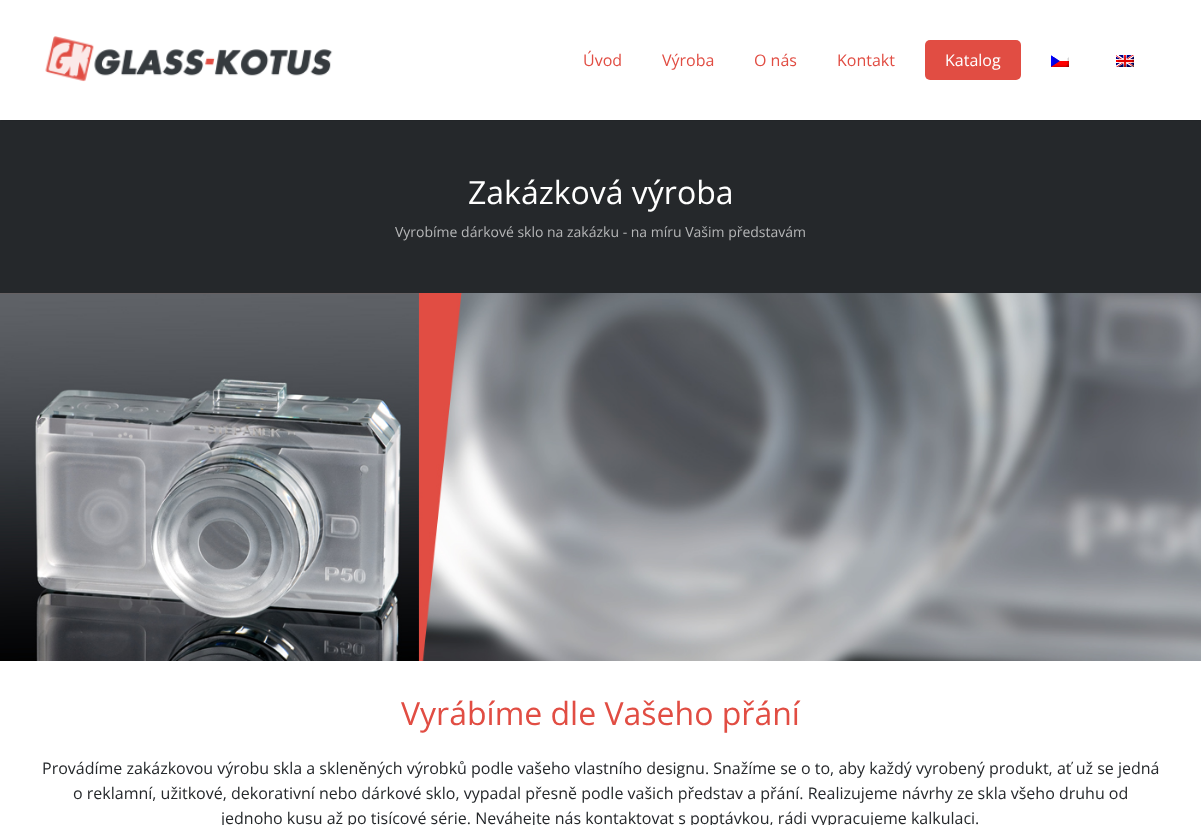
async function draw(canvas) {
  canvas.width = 1201
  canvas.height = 825
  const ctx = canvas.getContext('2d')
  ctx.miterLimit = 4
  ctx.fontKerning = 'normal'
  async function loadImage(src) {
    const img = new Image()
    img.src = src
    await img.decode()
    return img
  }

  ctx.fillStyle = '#fff'
  ctx.fillRect(0, 0, 1201, 825)
  ctx.fillStyle = '#25282b'
  ctx.fillRect(0, 120, 1201, 173)
  ctx.fillStyle = '#222528'
  ctx.fillRect(1, 120, 1199, 1)
  ctx.drawImage(await loadImage('image0.png'), 45, 36, 288, 46)
  ctx.font = '16px Open Sans'
  ctx.fillStyle = '#e14d43'
  ctx.fillText('Úvod', 583, 66)
  ctx.fillText('Výroba', 662, 66)
  ctx.fillText('O nás', 754, 66)
  ctx.fillText('Kontakt', 837, 66)
  ctx.beginPath()
  ctx.roundRect(925, 40, 96, 40, 5)
  ctx.fill()
  ctx.fillStyle = '#fff'
  ctx.fillText('Katalog', 945, 66)
  ctx.drawImage(await loadImage('image1.png'), 1051, 55, 18, 12)
  ctx.drawImage(await loadImage('image2.png'), 1116, 55, 18, 12)
  ctx.font = '32px Open Sans'
  ctx.fillText('Zakázková výroba', 468, 204)
  ctx.font = '14px Open Sans'
  ctx.fillStyle = '#b5b6b7'
  ctx.fillText('Vyrobíme dárkové sklo na zakázku - na míru Vašim představám', 395, 237)
  ctx.drawImage(await loadImage('image3.png'), 0, 293, 1201, 368)
  ctx.font = '32px Open Sans'
  ctx.fillStyle = '#e14d43'
  ctx.fillText('Vyrábíme dle Vašeho přání', 401, 725)
  ctx.font = '16px Open Sans'
  ctx.fillStyle = '#25282b'
  ctx.fillText('Provádíme zakázkovou výrobu skla a skleněných výrobků podle vašeho vlastního designu. Snažíme se o to, aby každý vyrobený produkt, ať už se jedná', 42, 774)
  ctx.fillText('o reklamní, užitkové, dekorativní nebo dárkové sklo, vypadal přesně podle vašich představ a přání. Realizujeme návrhy ze skla všeho druhu od', 73, 799)
  ctx.fillText('jednoho kusu až po tisícové série. Neváhejte nás kontaktovat s poptávkou, rádi vypracujeme kalkulaci.', 221, 824)
}

draw(document.querySelector('canvas'))
